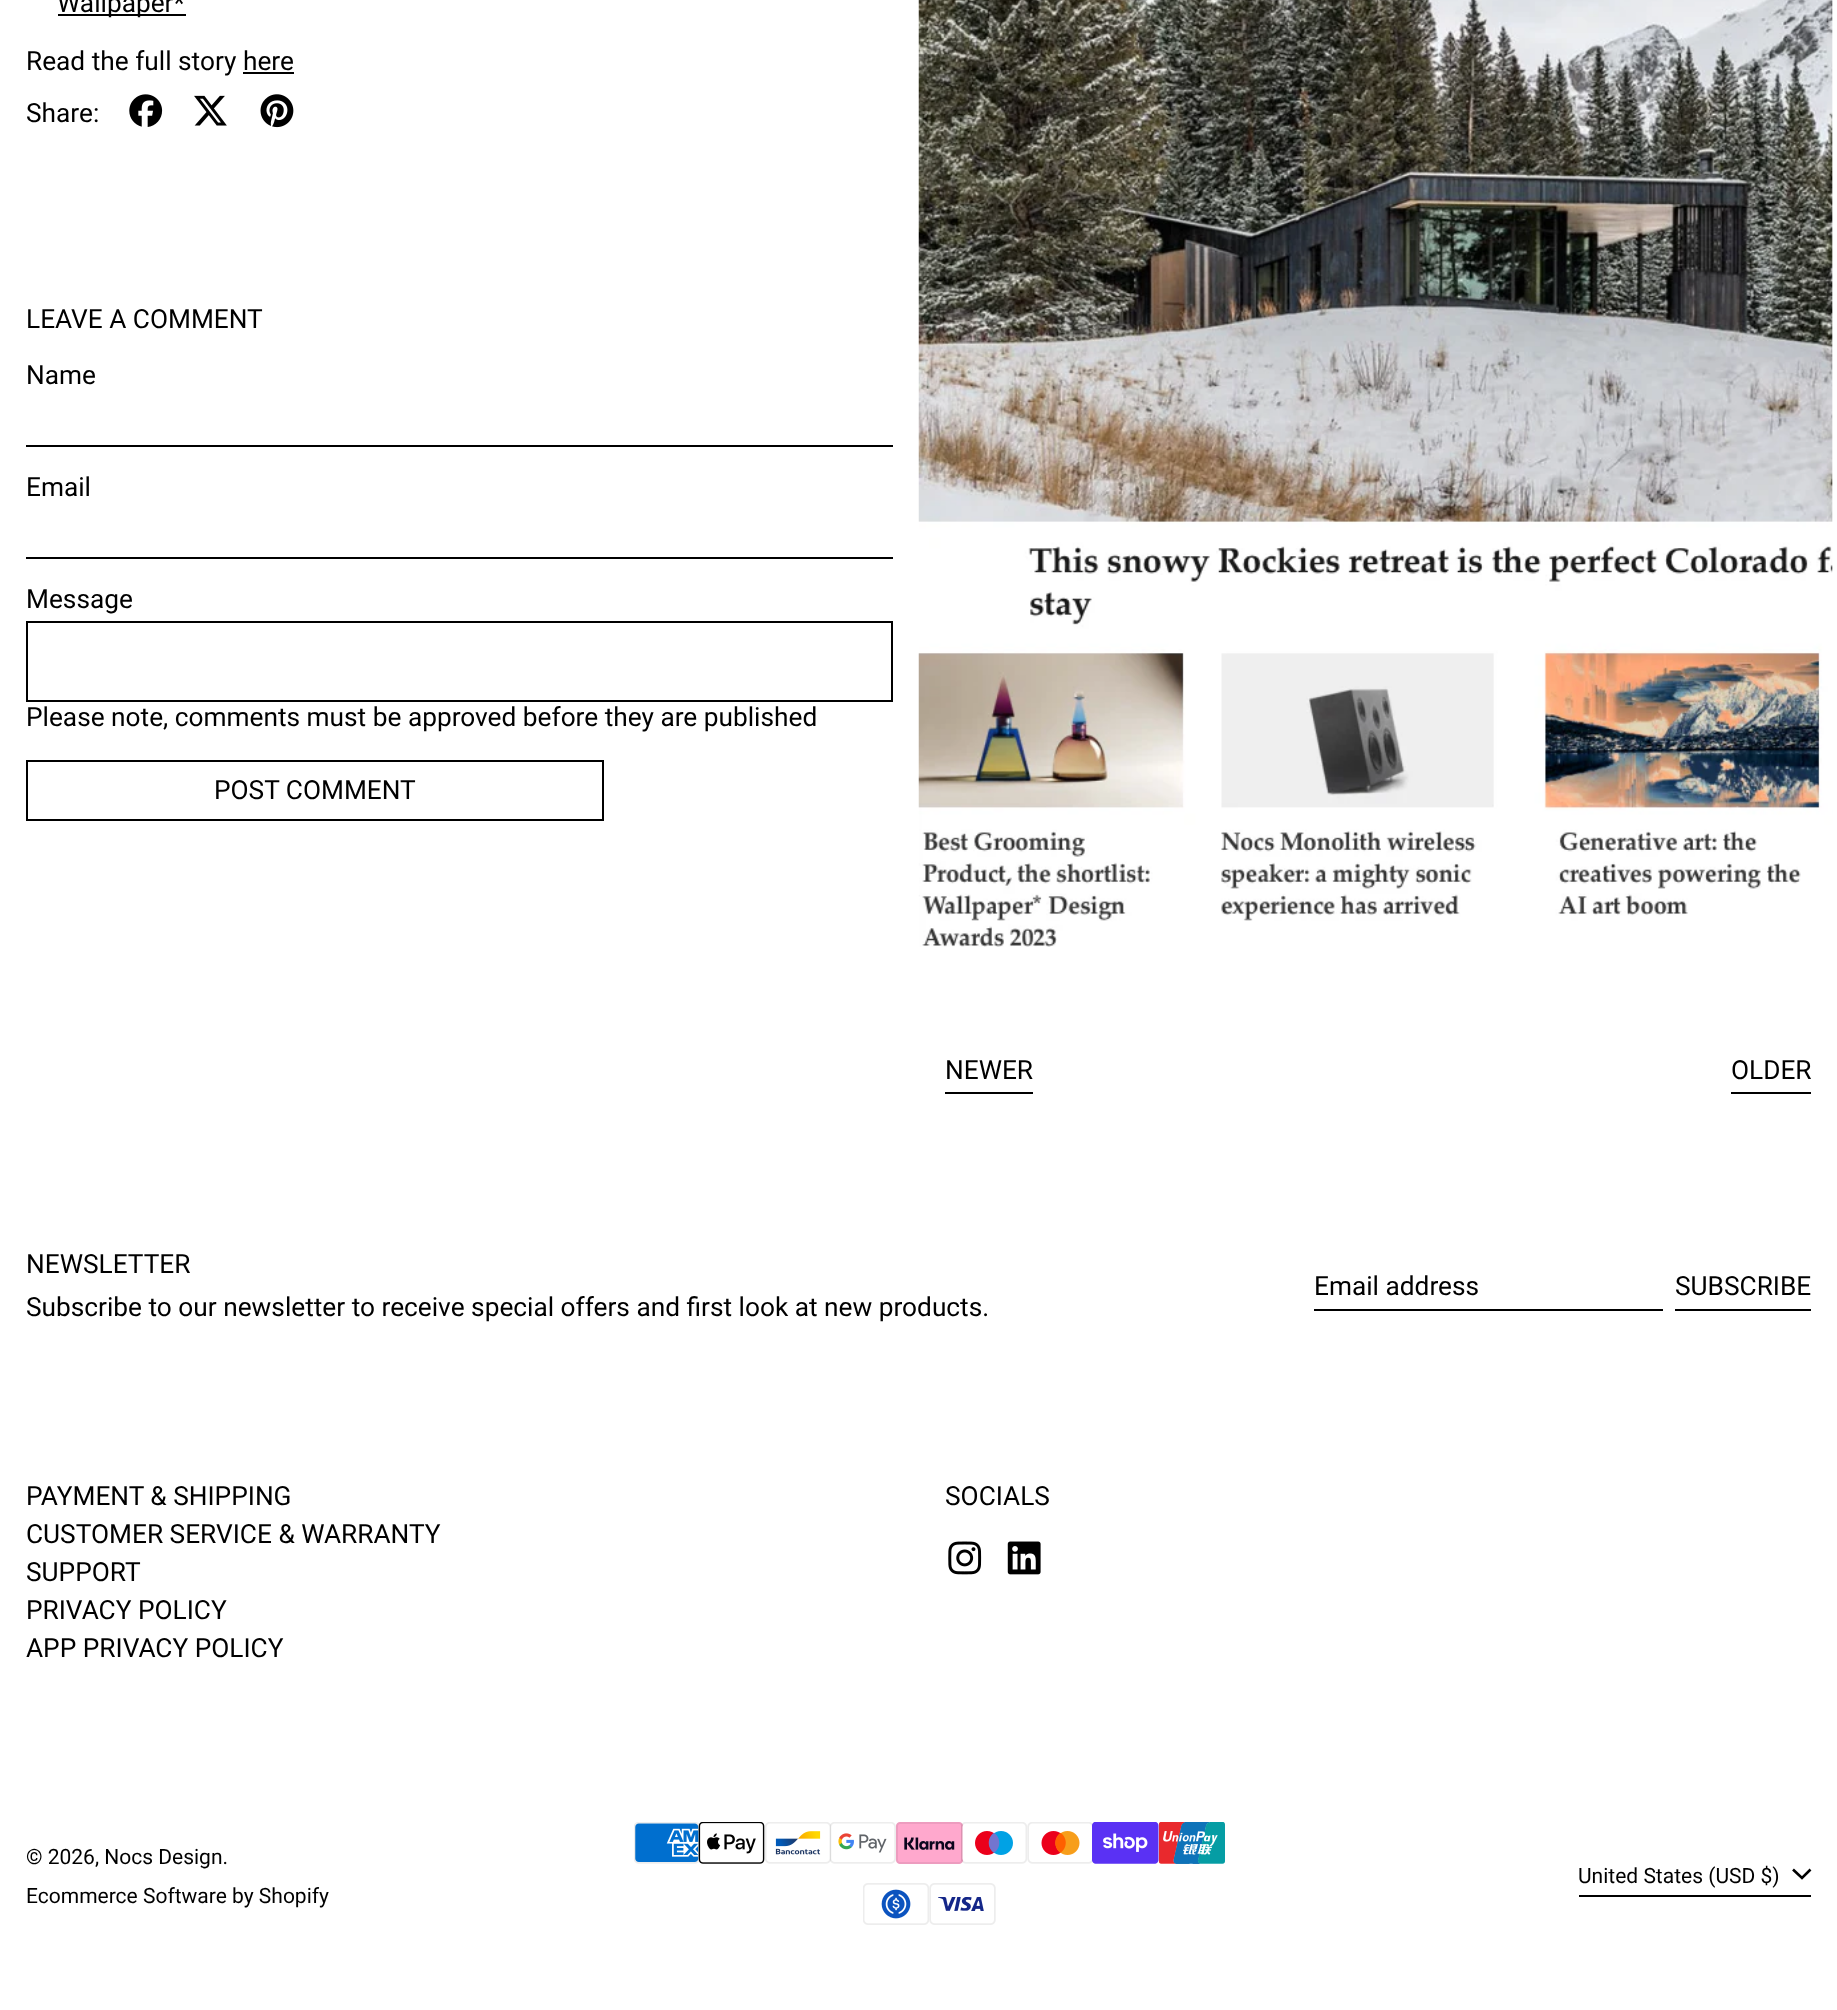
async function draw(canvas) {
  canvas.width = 1837
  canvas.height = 2010
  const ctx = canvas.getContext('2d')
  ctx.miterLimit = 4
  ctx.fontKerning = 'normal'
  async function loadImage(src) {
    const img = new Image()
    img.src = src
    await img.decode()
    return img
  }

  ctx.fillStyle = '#fff'
  ctx.fillRect(0, 0, 1837, 2010)
  ctx.fillStyle = '#000'
  ctx.fillRect(58, 14, 128, 2)
  ctx.font = '26.25px Roboto'
  ctx.fillText('Wallpaper*', 57, 12)
  ctx.fillText('Read the full story here', 26, 70)
  ctx.fillRect(243, 72, 51, 2)
  ctx.fillText('Share:', 26, 122)
  ctx.drawImage(await loadImage('image0.png'), 129, 94, 34, 33)
  ctx.drawImage(await loadImage('image1.png'), 194, 95, 33, 31)
  ctx.drawImage(await loadImage('image2.png'), 260, 94, 34, 34)
  ctx.fillText('LEAVE A COMMENT', 26, 328)
  ctx.fillText('Name', 26, 384)
  ctx.fillRect(26, 445, 867, 2)
  ctx.fillText('Email', 26, 496)
  ctx.fillRect(26, 557, 867, 2)
  ctx.fillText('Message', 26, 608)
  ctx.strokeStyle = '#000'
  ctx.lineWidth = 2
  ctx.strokeRect(27, 622, 865, 79)
  ctx.fillText('Please note, comments must be approved before they are published', 26, 726)
  ctx.strokeRect(27, 761, 576, 59)
  ctx.fillText('POST COMMENT', 214, 799)
  ctx.drawImage(await loadImage('image3.png'), 918, 0, 915, 947)
  ctx.fillRect(945, 1092, 88, 2)
  ctx.fillText('NEWER', 945, 1079)
  ctx.fillRect(1731, 1092, 80, 2)
  ctx.fillText('OLDER', 1731, 1079)
  ctx.fillText('NEWSLETTER', 26, 1273)
  ctx.fillText('Subscribe to our newsletter to receive special offers and first look at new products.', 26, 1316)
  ctx.fillRect(1314, 1309, 349, 2)
  ctx.fillText('Email address', 1314, 1295)
  ctx.fillRect(1675, 1309, 136, 2)
  ctx.fillText('SUBSCRIBE', 1675, 1295)
  ctx.fillText('PAYMENT & SHIPPING', 26, 1505)
  ctx.fillText('CUSTOMER SERVICE & WARRANTY', 26, 1543)
  ctx.fillText('SUPPORT', 26, 1581)
  ctx.fillText('PRIVACY POLICY', 26, 1619)
  ctx.fillText('APP PRIVACY POLICY', 26, 1657)
  ctx.fillText('SOCIALS', 945, 1505)
  ctx.drawImage(await loadImage('image4.png'), 948, 1541, 34, 34)
  ctx.drawImage(await loadImage('image5.png'), 1007, 1541, 34, 34)
  ctx.font = '21px Roboto'
  ctx.fillText('© 2026, Nocs Design.', 26, 1864)
  ctx.fillText('Ecommerce Software by Shopify', 26, 1903)
  ctx.drawImage(await loadImage('image6.png'), 634, 1822, 66, 42)
  ctx.drawImage(await loadImage('image7.png'), 698, 1822, 67, 42)
  ctx.drawImage(await loadImage('image8.png'), 765, 1822, 66, 42)
  ctx.drawImage(await loadImage('image9.png'), 830, 1822, 66, 42)
  ctx.drawImage(await loadImage('image10.png'), 896, 1822, 67, 42)
  ctx.drawImage(await loadImage('image11.png'), 961, 1822, 66, 42)
  ctx.drawImage(await loadImage('image12.png'), 1027, 1822, 66, 42)
  ctx.drawImage(await loadImage('image13.png'), 1092, 1822, 67, 42)
  ctx.drawImage(await loadImage('image14.png'), 1159, 1822, 66, 42)
  ctx.drawImage(await loadImage('image15.png'), 863, 1883, 66, 42)
  ctx.drawImage(await loadImage('image16.png'), 929, 1883, 67, 42)
  ctx.fillRect(1579, 1895, 232, 2)
  ctx.fillText('United States (USD $)', 1578, 1883)
  ctx.beginPath()
  ctx.moveTo(1793, 1869.5)
  ctx.lineTo(1802, 1878)
  ctx.lineTo(1810.5, 1869.5)
  ctx.lineWidth = 2.6
  ctx.stroke()
}

draw(document.querySelector('canvas'))
